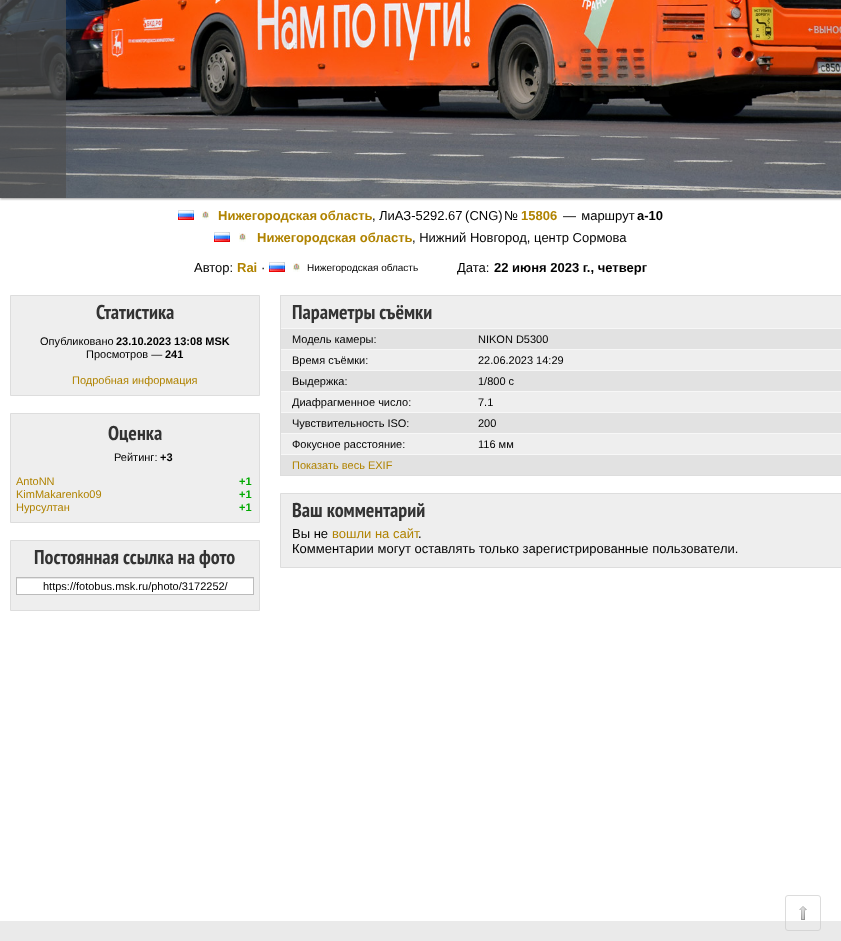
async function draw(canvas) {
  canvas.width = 841
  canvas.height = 941
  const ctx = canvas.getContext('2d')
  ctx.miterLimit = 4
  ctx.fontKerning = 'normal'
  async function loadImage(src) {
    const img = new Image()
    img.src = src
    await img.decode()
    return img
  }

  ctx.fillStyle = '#fff'
  ctx.fillRect(0, 0, 841, 941)
  ctx.fillStyle = '#00000066'
  ctx.filter = 'blur(1px)'
  ctx.beginPath()
  ctx.rect(0, -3, 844, 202)
  ctx.fill()
  ctx.filter = 'none'
  ctx.drawImage(await loadImage('image0.png'), 0, 0, 841, 198)
  ctx.fillStyle = '#505050b3'
  ctx.fillRect(0, 0, 66, 198)
  ctx.drawImage(await loadImage('image1.png'), 178, 210, 16, 10)
  ctx.drawImage(await loadImage('image2.png'), 202, 211, 7, 9)
  ctx.wordSpacing = '-1px'
  ctx.font = 'bold 13px Liberation Sans'
  ctx.fillStyle = '#b08300'
  ctx.fillText('Нижегородская область', 218, 220)
  ctx.wordSpacing = '0px'
  ctx.font = '13px Liberation Sans'
  ctx.fillStyle = '#000'
  ctx.fillText(',', 372, 220)
  ctx.wordSpacing = '-1px'
  ctx.fillText('ЛиАЗ-5292.67 (CNG)', 379, 220)
  ctx.wordSpacing = '0px'
  ctx.fillText('№', 504, 220)
  ctx.font = 'bold 13px Liberation Sans'
  ctx.fillStyle = '#b08300'
  ctx.fillText('15806', 521, 220)
  ctx.wordSpacing = '-1px'
  ctx.font = '13px Liberation Sans'
  ctx.fillStyle = '#000'
  ctx.fillText('—  маршрут', 563, 220)
  ctx.wordSpacing = '0px'
  ctx.font = 'bold 13px Liberation Sans'
  ctx.fillText('а-10', 637, 220)
  ctx.drawImage(await loadImage('image1.png'), 214, 232, 16, 10)
  ctx.drawImage(await loadImage('image2.png'), 239, 233, 7, 9)
  ctx.fillStyle = '#b08300'
  ctx.fillText('Нижегородская область', 257, 242)
  ctx.font = '13px Liberation Sans'
  ctx.fillStyle = '#000'
  ctx.fillText(', Нижний Новгород, центр Сормова', 412, 242)
  ctx.fillText('Автор:', 194, 272)
  ctx.font = 'bold 13px Liberation Sans'
  ctx.fillStyle = '#b08300'
  ctx.fillText('Rai', 237, 272)
  ctx.font = '13px Liberation Sans'
  ctx.fillStyle = '#000'
  ctx.fillText('·', 261, 272)
  ctx.drawImage(await loadImage('image1.png'), 269, 262, 16, 10)
  ctx.drawImage(await loadImage('image2.png'), 293, 263, 7, 9)
  ctx.font = '10px Liberation Sans'
  ctx.fillText('Нижегородская область', 307, 271)
  ctx.font = '13px Liberation Sans'
  ctx.fillText('Дата:', 457, 272)
  ctx.font = 'bold 13px Liberation Sans'
  ctx.fillText('22 июня 2023 г., четверг', 494, 272)
  ctx.fillStyle = '#eee'
  ctx.beginPath()
  ctx.rect(10.5, 295.5, 249, 100)
  ctx.fill()
  ctx.strokeStyle = '#ddd'
  ctx.stroke()
  ctx.font = 'bold 20px PT Sans Narrow'
  ctx.fillStyle = '#333'
  ctx.fillText('Статистика', 96, 319)
  ctx.font = '11px Liberation Sans'
  ctx.fillStyle = '#000'
  ctx.fillText('Опубликовано', 40, 345)
  ctx.font = 'bold 11px Liberation Sans'
  ctx.fillText('23.10.2023 13:08 MSK', 116, 345)
  ctx.font = '11px Liberation Sans'
  ctx.fillText('Просмотров —', 86, 358)
  ctx.font = 'bold 11px Liberation Sans'
  ctx.fillText('241', 165, 358)
  ctx.font = '11px Liberation Sans'
  ctx.fillStyle = '#b08300'
  ctx.fillText('Подробная информация', 72, 384)
  ctx.fillStyle = '#eee'
  ctx.beginPath()
  ctx.rect(10.5, 413.5, 249, 109)
  ctx.fill()
  ctx.stroke()
  ctx.font = 'bold 20px PT Sans Narrow'
  ctx.fillStyle = '#333'
  ctx.fillText('Оценка', 108, 440)
  ctx.font = '11px Liberation Sans'
  ctx.fillStyle = '#000'
  ctx.fillText('Рейтинг:', 114, 461)
  ctx.font = 'bold 11px Liberation Sans'
  ctx.fillText('+3', 160, 461)
  ctx.font = '11px Liberation Sans'
  ctx.fillStyle = '#b08300'
  ctx.fillText('AntoNN', 16, 485)
  ctx.font = 'bold 11px Liberation Sans'
  ctx.fillStyle = '#0a0'
  ctx.fillText('+1', 239, 485)
  ctx.font = '11px Liberation Sans'
  ctx.fillStyle = '#b08300'
  ctx.fillText('KimMakarenko09', 16, 498)
  ctx.font = 'bold 11px Liberation Sans'
  ctx.fillStyle = '#0a0'
  ctx.fillText('+1', 239, 498)
  ctx.font = '11px Liberation Sans'
  ctx.fillStyle = '#b08300'
  ctx.fillText('Нурсултан', 16, 511)
  ctx.font = 'bold 11px Liberation Sans'
  ctx.fillStyle = '#0a0'
  ctx.fillText('+1', 239, 511)
  ctx.fillStyle = '#eee'
  ctx.beginPath()
  ctx.rect(10.5, 540.5, 249, 70)
  ctx.fill()
  ctx.stroke()
  ctx.font = 'bold 20px PT Sans Narrow'
  ctx.fillStyle = '#333'
  ctx.fillText('Постоянная ссылка на фото', 34, 564)
  ctx.fillStyle = '#fff'
  ctx.fillRect(17, 579, 236, 15)
  ctx.fillStyle = '#e6e6e6'
  ctx.fillRect(17, 578, 236, 1)
  ctx.strokeStyle = '#bbb'
  ctx.strokeRect(16.5, 577.5, 237, 17)
  ctx.save()
  ctx.beginPath()
  ctx.rect(20, 580, 230, 12)
  ctx.clip()
  ctx.font = '11px Liberation Sans'
  ctx.fillStyle = '#000'
  ctx.fillText('https://fotobus.msk.ru/photo/3172252/', 43, 590)
  ctx.restore()
  ctx.fillStyle = '#eee'
  ctx.fillRect(281, 296, 560, 158)
  ctx.strokeStyle = '#ddd'
  ctx.strokeRect(280.5, 295.5, 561, 180)
  ctx.fillStyle = '#333'
  ctx.fillText('Параметры съёмки', 292, 319)
  ctx.fillStyle = '#e2e2e2'
  ctx.fillRect(281, 329, 560, 20)
  ctx.font = '11px Liberation Sans'
  ctx.fillStyle = '#000'
  ctx.fillText('Модель камеры:', 292, 343)
  ctx.fillStyle = '#f7f7f7'
  ctx.fillRect(281, 328, 560, 1)
  ctx.fillStyle = '#000'
  ctx.fillText('NIKON D5300', 478, 343)
  ctx.fillText('Время съёмки:', 292, 364)
  ctx.fillStyle = '#f7f7f7'
  ctx.fillRect(281, 349, 560, 1)
  ctx.fillStyle = '#000'
  ctx.fillText('22.06.2023 14:29', 478, 364)
  ctx.fillStyle = '#e2e2e2'
  ctx.fillRect(281, 371, 560, 20)
  ctx.fillStyle = '#000'
  ctx.fillText('Выдержка:', 292, 385)
  ctx.fillStyle = '#f7f7f7'
  ctx.fillRect(281, 370, 560, 1)
  ctx.fillStyle = '#000'
  ctx.fillText('1/800 с', 478, 385)
  ctx.fillText('Диафрагменное число:', 292, 406)
  ctx.fillStyle = '#f7f7f7'
  ctx.fillRect(281, 391, 560, 1)
  ctx.fillStyle = '#000'
  ctx.fillText('7.1', 478, 406)
  ctx.fillStyle = '#e2e2e2'
  ctx.fillRect(281, 413, 560, 20)
  ctx.fillStyle = '#000'
  ctx.fillText('Чувствительность ISO:', 292, 427)
  ctx.fillStyle = '#f7f7f7'
  ctx.fillRect(281, 412, 560, 1)
  ctx.fillStyle = '#000'
  ctx.fillText('200', 478, 427)
  ctx.fillText('Фокусное расстояние:', 292, 448)
  ctx.fillStyle = '#f7f7f7'
  ctx.fillRect(281, 433, 560, 1)
  ctx.fillStyle = '#000'
  ctx.fillText('116 мм', 478, 448)
  ctx.fillStyle = '#e2e2e2'
  ctx.fillRect(281, 455, 560, 20)
  ctx.fillStyle = '#f7f7f7'
  ctx.fillRect(281, 454, 560, 1)
  ctx.fillStyle = '#b08300'
  ctx.fillText('Показать весь EXIF', 292, 469)
  ctx.fillStyle = '#eee'
  ctx.beginPath()
  ctx.rect(280.5, 493.5, 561, 74)
  ctx.fill()
  ctx.stroke()
  ctx.font = 'bold 20px PT Sans Narrow'
  ctx.fillStyle = '#333'
  ctx.fillText('Ваш комментарий', 292, 517)
  ctx.font = '13px Liberation Sans'
  ctx.fillStyle = '#000'
  ctx.fillText('Вы не', 292, 538)
  ctx.fillStyle = '#b08300'
  ctx.fillText('вошли на сайт', 332, 538)
  ctx.fillStyle = '#000'
  ctx.fillText('.', 418, 538)
  ctx.fillText('Комментарии могут оставлять только зарегистрированные пользователи.', 292, 553)
  ctx.drawImage(await loadImage('image3.png'), 799, 906, 8, 14)
  ctx.fillStyle = '#eaeaea'
  ctx.fillRect(0, 921, 841, 20)
  ctx.beginPath()
  ctx.roundRect(785.5, 895.5, 35, 35, 2.5)
  ctx.strokeStyle = '#ccccccad'
  ctx.stroke()
}

draw(document.querySelector('canvas'))
